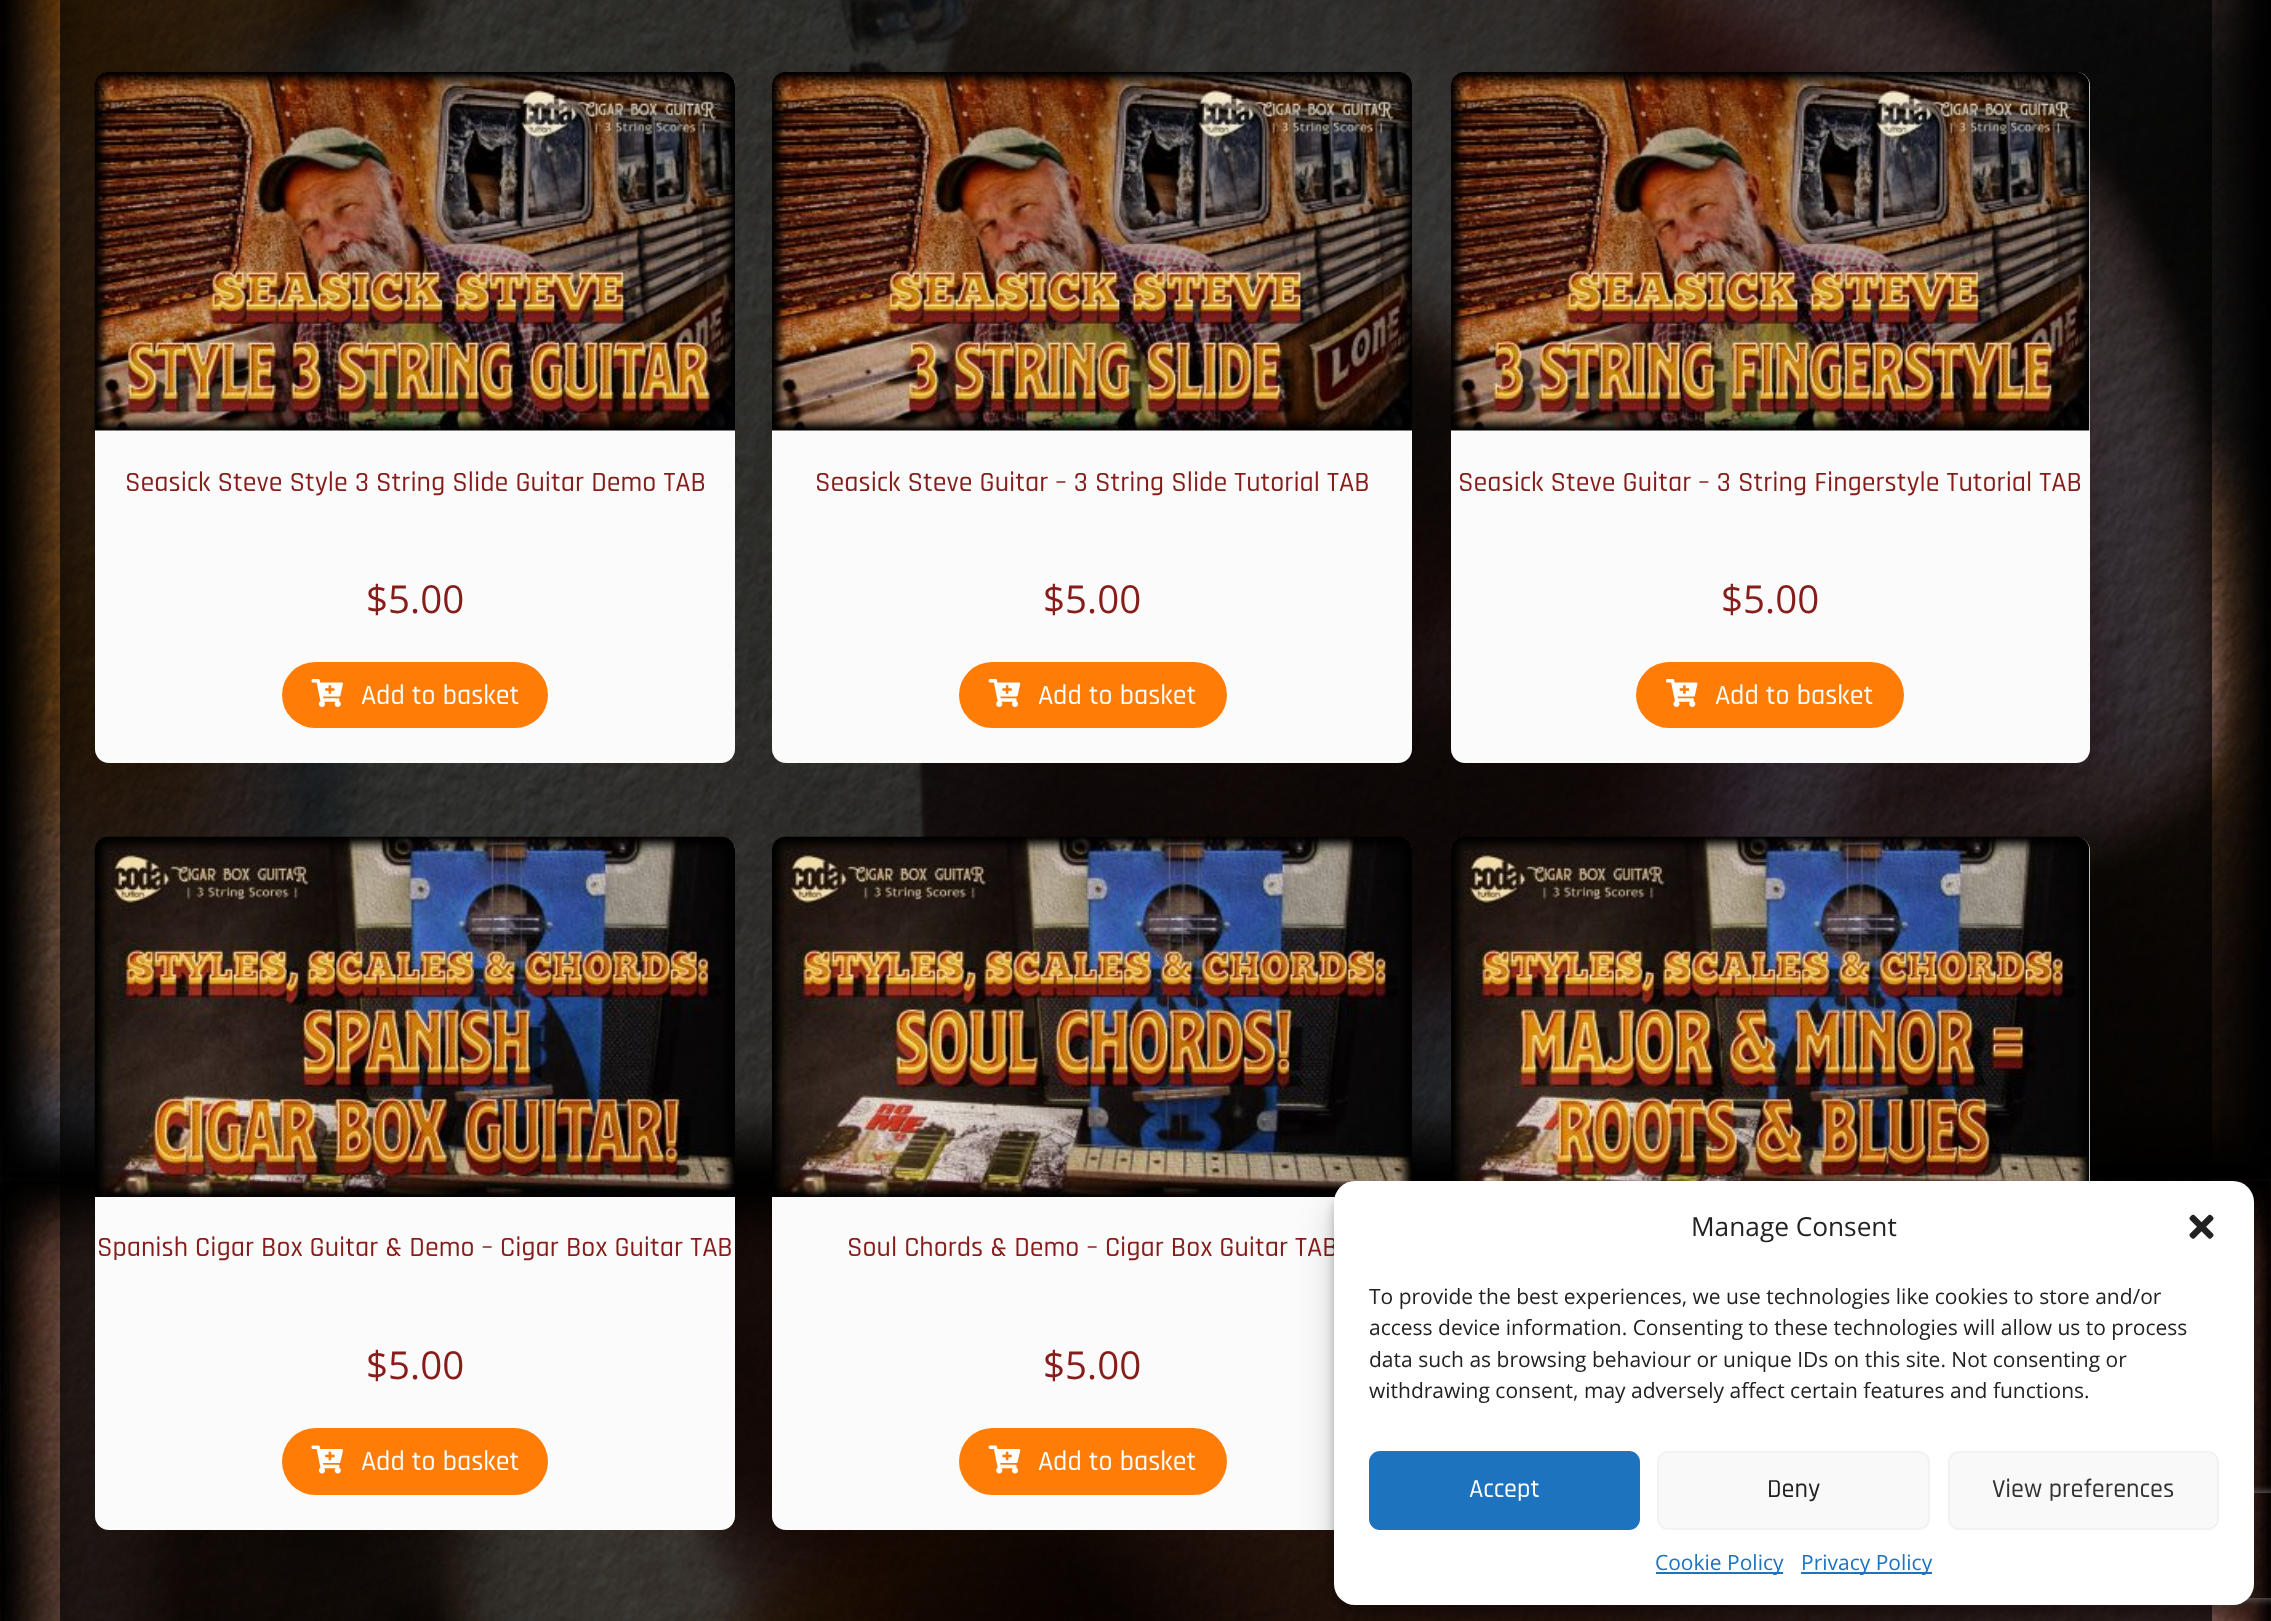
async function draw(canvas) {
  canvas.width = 2271
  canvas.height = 1621
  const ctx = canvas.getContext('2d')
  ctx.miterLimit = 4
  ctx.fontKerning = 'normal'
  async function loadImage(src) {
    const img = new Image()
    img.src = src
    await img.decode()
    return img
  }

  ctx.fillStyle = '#fff'
  ctx.fillRect(0, 0, 2271, 1621)
  ctx.drawImage(await loadImage('image0.png'), 0, 0, 2271, 1621)
  ctx.fillStyle = '#fbfbfb'
  ctx.beginPath()
  ctx.roundRect(95, 72, 640, 691, 14)
  ctx.fill()
  ctx.drawImage(await loadImage('image1.png'), 94, 72, 641, 359)
  ctx.font = '500 28px Rajdhani'
  ctx.fillStyle = '#861d1a'
  ctx.fillText('Seasick Steve Style 3 String Slide Guitar Demo TAB', 125, 491)
  ctx.font = '38.5px Open Sans'
  ctx.fillText('$5.00', 366, 613)
  ctx.fillStyle = '#ff7d06'
  ctx.beginPath()
  ctx.roundRect(282, 662, 266, 66, 33)
  ctx.fill()
  ctx.drawImage(await loadImage('image2.png'), 311, 679, 32, 28)
  ctx.font = '500 28px Rajdhani'
  ctx.fillStyle = '#fff'
  ctx.fillText('Add to basket', 361, 704)
  ctx.fillStyle = '#fbfbfb'
  ctx.beginPath()
  ctx.roundRect(772, 72, 640, 691, 14)
  ctx.fill()
  ctx.drawImage(await loadImage('image3.png'), 772, 72, 640, 359)
  ctx.fillStyle = '#861d1a'
  ctx.fillText('Seasick Steve Guitar – 3 String Slide Tutorial TAB', 815, 491)
  ctx.font = '38.5px Open Sans'
  ctx.fillText('$5.00', 1043, 613)
  ctx.fillStyle = '#ff7d06'
  ctx.beginPath()
  ctx.roundRect(959, 662, 268, 66, 33)
  ctx.fill()
  ctx.drawImage(await loadImage('image4.png'), 988, 679, 33, 28)
  ctx.font = '500 28px Rajdhani'
  ctx.fillStyle = '#fff'
  ctx.fillText('Add to basket', 1038, 704)
  ctx.fillStyle = '#fbfbfb'
  ctx.beginPath()
  ctx.roundRect(1451, 72, 639, 691, 14)
  ctx.fill()
  ctx.drawImage(await loadImage('image5.png'), 1451, 72, 639, 359)
  ctx.fillStyle = '#861d1a'
  ctx.fillText('Seasick Steve Guitar – 3 String Fingerstyle Tutorial TAB', 1458, 491)
  ctx.font = '38.5px Open Sans'
  ctx.fillText('$5.00', 1721, 613)
  ctx.fillStyle = '#ff7d06'
  ctx.beginPath()
  ctx.roundRect(1636, 662, 268, 66, 33)
  ctx.fill()
  ctx.drawImage(await loadImage('image6.png'), 1666, 679, 32, 28)
  ctx.font = '500 28px Rajdhani'
  ctx.fillStyle = '#fff'
  ctx.fillText('Add to basket', 1715, 704)
  ctx.fillStyle = '#fbfbfb'
  ctx.beginPath()
  ctx.roundRect(95, 837, 640, 693, 14)
  ctx.fill()
  ctx.drawImage(await loadImage('image7.png'), 94, 836, 641, 361)
  ctx.fillStyle = '#861d1a'
  ctx.fillText('Spanish Cigar Box Guitar & Demo – Cigar Box Guitar TAB', 97, 1256)
  ctx.font = '38.5px Open Sans'
  ctx.fillText('$5.00', 366, 1379)
  ctx.fillStyle = '#ff7d06'
  ctx.beginPath()
  ctx.roundRect(282, 1428, 266, 67, 33.5)
  ctx.fill()
  ctx.drawImage(await loadImage('image8.png'), 311, 1445, 32, 29)
  ctx.font = '500 28px Rajdhani'
  ctx.fillStyle = '#fff'
  ctx.fillText('Add to basket', 361, 1470)
  ctx.fillStyle = '#fbfbfb'
  ctx.beginPath()
  ctx.roundRect(772, 837, 640, 693, 14)
  ctx.fill()
  ctx.drawImage(await loadImage('image9.png'), 772, 836, 640, 361)
  ctx.fillStyle = '#861d1a'
  ctx.fillText('Soul Chords & Demo – Cigar Box Guitar TAB', 847, 1256)
  ctx.font = '38.5px Open Sans'
  ctx.fillText('$5.00', 1043, 1379)
  ctx.fillStyle = '#ff7d06'
  ctx.beginPath()
  ctx.roundRect(959, 1428, 268, 67, 33.5)
  ctx.fill()
  ctx.drawImage(await loadImage('image10.png'), 988, 1445, 33, 29)
  ctx.font = '500 28px Rajdhani'
  ctx.fillStyle = '#fff'
  ctx.fillText('Add to basket', 1038, 1470)
  ctx.fillStyle = '#fbfbfb'
  ctx.beginPath()
  ctx.roundRect(1451, 837, 639, 693, 14)
  ctx.fill()
  ctx.drawImage(await loadImage('image11.png'), 1451, 836, 639, 345)
  ctx.fillStyle = '#0000003b'
  ctx.filter = 'blur(5px)'
  ctx.beginPath()
  ctx.roundRect(1334, 1192, 920, 423, 21)
  ctx.fill()
  ctx.filter = 'none'
  ctx.fillStyle = '#00000030'
  ctx.filter = 'blur(17.5px)'
  ctx.beginPath()
  ctx.roundRect(1334, 1199, 920, 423, 21)
  ctx.fill()
  ctx.filter = 'none'
  ctx.save()
  ctx.beginPath()
  ctx.moveTo(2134, 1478)
  ctx.lineTo(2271, 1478)
  ctx.lineTo(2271, 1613)
  ctx.lineTo(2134, 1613)
  ctx.closePath()
  ctx.moveTo(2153, 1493)
  ctx.lineTo(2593, 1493)
  ctx.bezierCurveTo(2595, 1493, 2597, 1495, 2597, 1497)
  ctx.lineTo(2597, 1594)
  ctx.bezierCurveTo(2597, 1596, 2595, 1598, 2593, 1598)
  ctx.lineTo(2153, 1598)
  ctx.bezierCurveTo(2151, 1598, 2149, 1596, 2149, 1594)
  ctx.lineTo(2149, 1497)
  ctx.bezierCurveTo(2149, 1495, 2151, 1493, 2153, 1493)
  ctx.closePath()
  ctx.clip('evenodd')
  ctx.fillStyle = '#808080'
  ctx.filter = 'blur(4.5px)'
  ctx.beginPath()
  ctx.roundRect(2149, 1493, 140, 105, 4)
  ctx.fill()
  ctx.filter = 'none'
  ctx.restore()
  ctx.fillStyle = '#fff'
  ctx.beginPath()
  ctx.roundRect(1334, 1181, 920, 424, 21)
  ctx.fill()
  ctx.font = '26.25px Open Sans'
  ctx.fillStyle = '#222'
  ctx.fillText('Manage Consent', 1691, 1236)
  ctx.drawImage(await loadImage('image12.png'), 2189, 1214, 25, 25)
  ctx.font = '21px Open Sans'
  ctx.fillText('To provide the best experiences, we use technologies like cookies to store and/or', 1369, 1304)
  ctx.fillText('access device information. Consenting to these technologies will allow us to process', 1369, 1335)
  ctx.fillText('data such as browsing behaviour or unique IDs on this site. Not consenting or', 1369, 1367)
  ctx.fillText('withdrawing consent, may adversely affect certain features and functions.', 1369, 1398)
  ctx.fillStyle = '#1e73be'
  ctx.beginPath()
  ctx.roundRect(1370, 1452, 269, 77, 10)
  ctx.fill()
  ctx.strokeStyle = '#1e73be'
  ctx.lineWidth = 2
  ctx.stroke()
  ctx.font = '500 26.25px Rajdhani'
  ctx.fillStyle = '#fff'
  ctx.fillText('Accept', 1469, 1497)
  ctx.fillStyle = '#f9f9f9'
  ctx.beginPath()
  ctx.roundRect(1658, 1452, 271, 77, 10)
  ctx.fill()
  ctx.strokeStyle = '#f2f2f2'
  ctx.stroke()
  ctx.fillStyle = '#222'
  ctx.fillText('Deny', 1767, 1497)
  ctx.fillStyle = '#f9f9f9'
  ctx.beginPath()
  ctx.roundRect(1949, 1452, 269, 77, 10)
  ctx.fill()
  ctx.stroke()
  ctx.fillStyle = '#333'
  ctx.fillText('View preferences', 1992, 1497)
  ctx.fillStyle = '#1e73be'
  ctx.fillRect(1656, 1572, 127, 2)
  ctx.font = '21px Open Sans'
  ctx.fillText('Cookie Policy', 1655, 1570)
  ctx.fillRect(1801, 1572, 131, 2)
  ctx.fillText('Privacy Policy', 1801, 1570)
}

draw(document.querySelector('canvas'))
